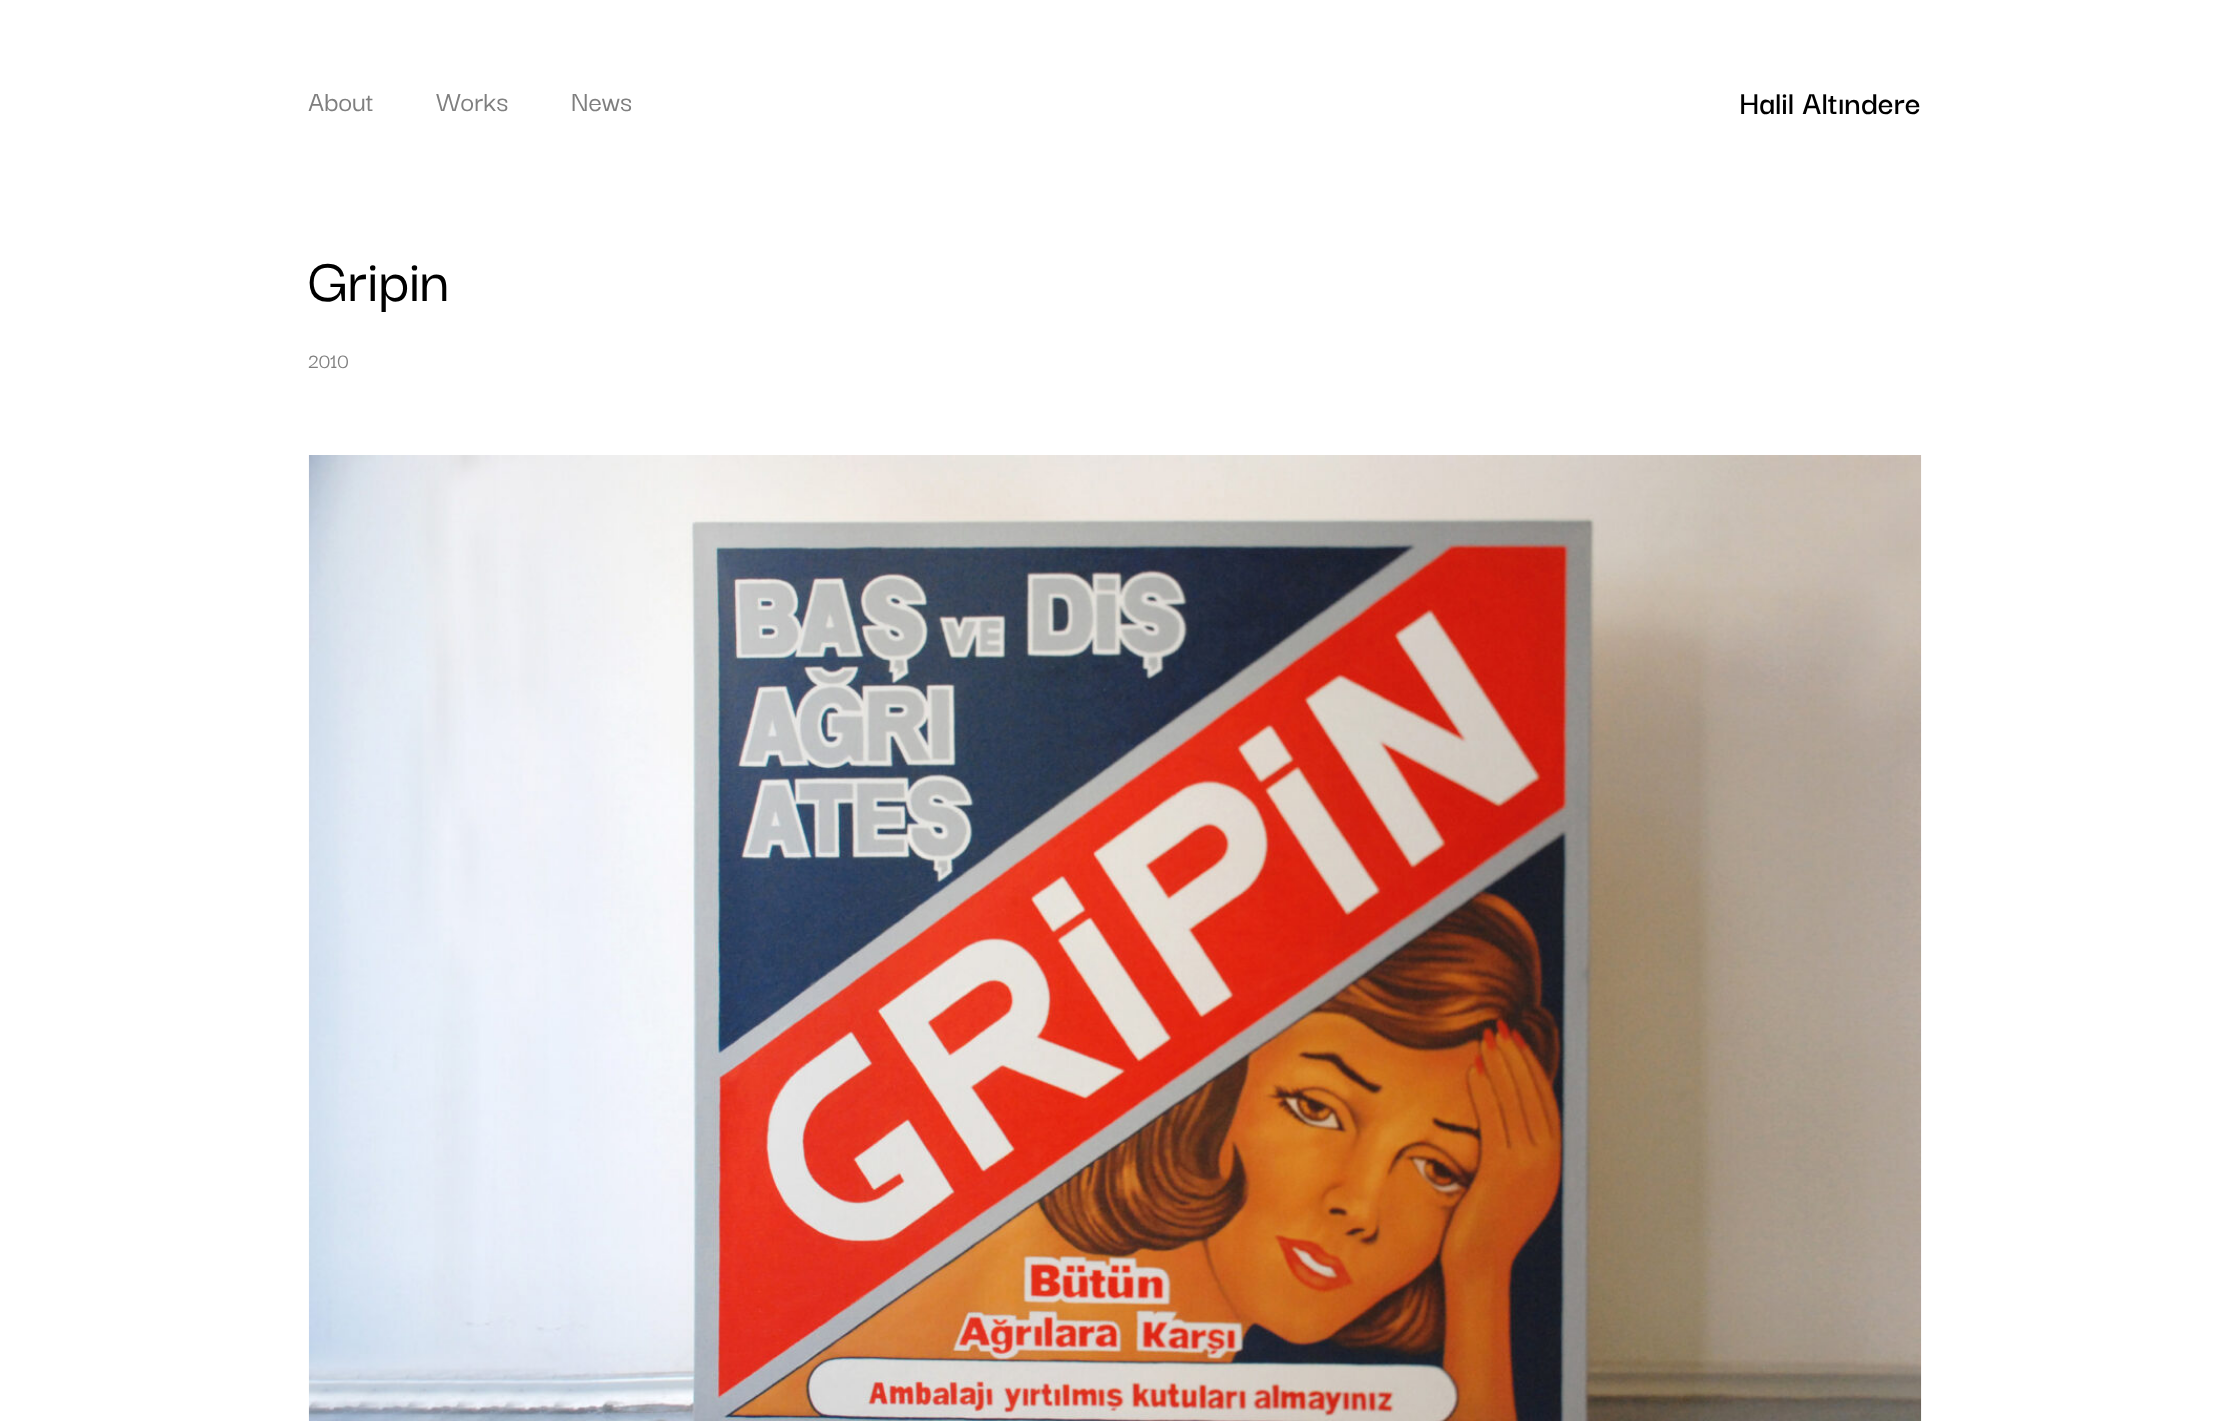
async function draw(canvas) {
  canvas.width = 2228
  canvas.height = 1421
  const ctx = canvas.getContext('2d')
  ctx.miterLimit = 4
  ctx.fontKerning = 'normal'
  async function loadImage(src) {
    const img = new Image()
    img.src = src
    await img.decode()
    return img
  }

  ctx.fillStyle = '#fff'
  ctx.fillRect(0, 0, 2228, 1421)
  ctx.font = '500 30px Darker Grotesque'
  ctx.fillStyle = '#7f7f7f'
  ctx.fillText('About', 308, 111)
  ctx.fillText('Works', 436, 111)
  ctx.fillText('News', 571, 111)
  ctx.font = '600 35px Darker Grotesque'
  ctx.fillStyle = '#000'
  ctx.fillText('Halil Altındere', 1739, 114)
  ctx.font = '500 65px Darker Grotesque'
  ctx.fillText('Gripin', 308, 301)
  ctx.font = '500 22px Darker Grotesque'
  ctx.fillStyle = '#7f7f7f'
  ctx.fillText('2010', 308, 368)
  ctx.drawImage(await loadImage('image0.png'), 308, 455, 1614, 966)
}

draw(document.querySelector('canvas'))
